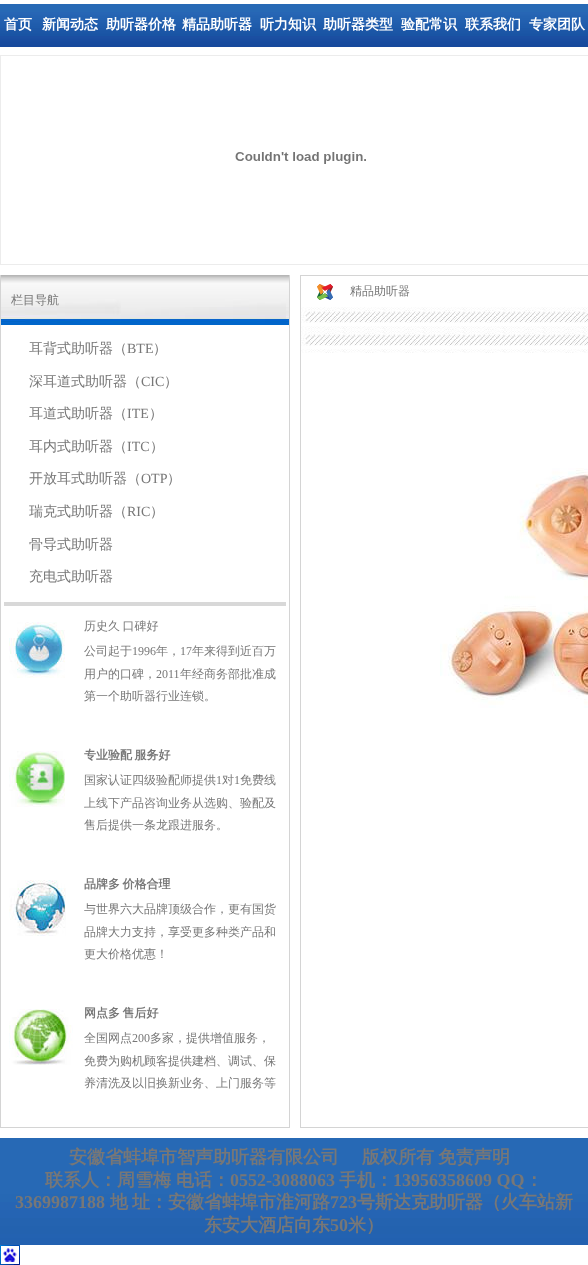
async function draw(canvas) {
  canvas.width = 588
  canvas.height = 1265
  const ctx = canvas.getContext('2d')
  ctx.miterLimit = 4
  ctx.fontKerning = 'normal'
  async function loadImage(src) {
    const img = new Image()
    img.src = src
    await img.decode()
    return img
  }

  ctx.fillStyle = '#fff'
  ctx.fillRect(0, 0, 588, 1265)
  ctx.drawImage(await loadImage('image0.png'), 0, 4, 588, 43)
  ctx.font = 'bold 14px WenQuanYi Zen Hei'
  ctx.fillText('首页', 4, 29)
  ctx.fillText('新闻动态', 42, 29)
  ctx.fillText('助听器价格', 106, 29)
  ctx.fillText('精品助听器', 182, 29)
  ctx.fillText('听力知识', 260, 29)
  ctx.fillText('助听器类型', 323, 29)
  ctx.fillText('验配常识', 401, 29)
  ctx.fillText('联系我们', 465, 29)
  ctx.fillText('专家团队', 529, 29)
  ctx.strokeStyle = '#ececec'
  ctx.strokeRect(0.5, 55.5, 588, 209)
  ctx.drawImage(await loadImage('image1.png'), 235, 152, 131, 12)
  ctx.strokeStyle = '#d4d4d4'
  ctx.strokeRect(300.5, 275.5, 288, 852)
  ctx.drawImage(await loadImage('image2.png'), 317, 284, 16, 16)
  ctx.font = '500 12px WenQuanYi Zen Hei'
  ctx.fillStyle = '#777'
  ctx.fillText('精品助听器', 350, 295)
  ctx.drawImage(await loadImage('image3.png'), 301, 307, 287, 23)
  ctx.drawImage(await loadImage('image3.png'), 301, 330, 287, 23)
  ctx.drawImage(await loadImage('image4.png'), 440, 468, 148, 240)
  ctx.fillStyle = '#d4d4d4'
  ctx.fillRect(289, 275, 1, 853)
  ctx.fillRect(0, 1127, 290, 1)
  ctx.fillRect(0, 275, 1, 853)
  ctx.drawImage(await loadImage('image5.png'), 1, 275, 288, 50)
  ctx.fillStyle = '#777'
  ctx.fillText('栏目导航', 11, 304)
  ctx.font = '500 14px WenQuanYi Zen Hei'
  ctx.fillText('耳背式助听器（', 29, 353)
  ctx.font = '14px Liberation Serif'
  ctx.fillText('BTE', 127, 353)
  ctx.font = '500 14px WenQuanYi Zen Hei'
  ctx.fillText('）', 153, 353)
  ctx.fillText('深耳道式助听器（', 29, 386)
  ctx.font = '14px Liberation Serif'
  ctx.fillText('CIC', 141, 386)
  ctx.font = '500 14px WenQuanYi Zen Hei'
  ctx.fillText('）', 164, 386)
  ctx.fillText('耳道式助听器（', 29, 418)
  ctx.font = '14px Liberation Serif'
  ctx.fillText('ITE', 127, 418)
  ctx.font = '500 14px WenQuanYi Zen Hei'
  ctx.fillText('）', 149, 418)
  ctx.fillText('耳内式助听器（', 29, 451)
  ctx.font = '14px Liberation Serif'
  ctx.fillText('ITC', 127, 451)
  ctx.font = '500 14px WenQuanYi Zen Hei'
  ctx.fillText('）', 150, 451)
  ctx.fillText('开放耳式助听器（', 29, 483)
  ctx.font = '14px Liberation Serif'
  ctx.fillText('OTP', 141, 483)
  ctx.font = '500 14px WenQuanYi Zen Hei'
  ctx.fillText('）', 167, 483)
  ctx.fillText('瑞克式助听器（', 29, 516)
  ctx.font = '14px Liberation Serif'
  ctx.fillText('RIC', 127, 516)
  ctx.font = '500 14px WenQuanYi Zen Hei'
  ctx.fillText('）', 150, 516)
  ctx.fillText('骨导式助听器', 29, 549)
  ctx.fillText('充电式助听器', 29, 581)
  ctx.fillStyle = '#d8d8d8'
  ctx.fillRect(4, 602, 282, 4)
  ctx.drawImage(await loadImage('image6.png'), 9, 622, 56, 56)
  ctx.wordSpacing = '-1px'
  ctx.font = '500 12px WenQuanYi Zen Hei'
  ctx.fillStyle = '#777'
  ctx.fillText('历史久 口碑好', 84, 630)
  ctx.wordSpacing = '0px'
  ctx.fillText('公司起于', 84, 655)
  ctx.font = '12px Liberation Serif'
  ctx.fillText('1996', 132, 655)
  ctx.font = '500 12px WenQuanYi Zen Hei'
  ctx.fillText('年，', 156, 655)
  ctx.font = '12px Liberation Serif'
  ctx.fillText('17', 180, 655)
  ctx.font = '500 12px WenQuanYi Zen Hei'
  ctx.fillText('年来得到近百万', 192, 655)
  ctx.fillText('用户的口碑，', 84, 678)
  ctx.font = '12px Liberation Serif'
  ctx.fillText('2011', 156, 678)
  ctx.font = '500 12px WenQuanYi Zen Hei'
  ctx.fillText('年经商务部批准成', 180, 678)
  ctx.fillText('第一个助听器行业连锁。', 84, 700)
  ctx.drawImage(await loadImage('image7.png'), 9, 751, 56, 56)
  ctx.wordSpacing = '-1px'
  ctx.font = 'bold 12px WenQuanYi Zen Hei'
  ctx.fillText('专业验配 服务好', 84, 759)
  ctx.wordSpacing = '0px'
  ctx.font = '500 12px WenQuanYi Zen Hei'
  ctx.fillText('国家认证四级验配师提供', 84, 784)
  ctx.font = '12px Liberation Serif'
  ctx.fillText('1', 216, 784)
  ctx.font = '500 12px WenQuanYi Zen Hei'
  ctx.fillText('对', 222, 784)
  ctx.font = '12px Liberation Serif'
  ctx.fillText('1', 234, 784)
  ctx.font = '500 12px WenQuanYi Zen Hei'
  ctx.fillText('免费线', 240, 784)
  ctx.fillText('上线下产品咨询业务从选购、验配及', 84, 807)
  ctx.fillText('售后提供一条龙跟进服务。', 84, 829)
  ctx.drawImage(await loadImage('image8.png'), 9, 880, 57, 56)
  ctx.wordSpacing = '-1px'
  ctx.font = 'bold 12px WenQuanYi Zen Hei'
  ctx.fillText('品牌多 价格合理', 84, 888)
  ctx.wordSpacing = '0px'
  ctx.font = '500 12px WenQuanYi Zen Hei'
  ctx.fillText('与世界六大品牌顶级合作，更有国货', 84, 913)
  ctx.fillText('品牌大力支持，享受更多种类产品和', 84, 936)
  ctx.fillText('更大价格优惠！', 84, 958)
  ctx.drawImage(await loadImage('image9.png'), 9, 1009, 64, 56)
  ctx.wordSpacing = '-1px'
  ctx.font = 'bold 12px WenQuanYi Zen Hei'
  ctx.fillText('网点多 售后好', 84, 1017)
  ctx.wordSpacing = '0px'
  ctx.font = '500 12px WenQuanYi Zen Hei'
  ctx.fillText('全国网点', 84, 1042)
  ctx.font = '12px Liberation Serif'
  ctx.fillText('200', 132, 1042)
  ctx.font = '500 12px WenQuanYi Zen Hei'
  ctx.fillText('多家，提供增值服务，', 150, 1042)
  ctx.fillText('免费为购机顾客提供建档、调试、保', 84, 1065)
  ctx.fillText('养清洗及以旧换新业务、上门服务等', 84, 1087)
  ctx.drawImage(await loadImage('image10.png'), 0, 1138, 588, 107)
  ctx.font = 'bold 18px WenQuanYi Zen Hei'
  ctx.fillText('安徽省蚌埠市智声助听器有限公司', 69, 1163)
  ctx.fillText('版权所有', 362, 1163)
  ctx.fillText('免责声明', 438, 1163)
  ctx.fillText('联系人：周雪梅', 45, 1186)
  ctx.fillText('电话：', 176, 1186)
  ctx.font = 'bold 18px Liberation Serif'
  ctx.fillText('0552-3088063', 230, 1186)
  ctx.font = 'bold 18px WenQuanYi Zen Hei'
  ctx.fillText('手机：', 339, 1186)
  ctx.font = 'bold 18px Liberation Serif'
  ctx.fillText('13956358609 QQ', 393, 1186)
  ctx.font = 'bold 18px WenQuanYi Zen Hei'
  ctx.fillText('：', 525, 1186)
  ctx.font = 'bold 18px Liberation Serif'
  ctx.fillText('3369987188', 15, 1208)
  ctx.font = 'bold 18px WenQuanYi Zen Hei'
  ctx.fillText('地', 110, 1208)
  ctx.fillText('址：安徽省蚌埠市淮河路', 132, 1208)
  ctx.font = 'bold 18px Liberation Serif'
  ctx.fillText('723', 330, 1208)
  ctx.font = 'bold 18px WenQuanYi Zen Hei'
  ctx.fillText('号斯达克助听器（火车站新', 357, 1208)
  ctx.fillText('东安大酒店向东', 204, 1231)
  ctx.font = 'bold 18px Liberation Serif'
  ctx.fillText('50', 330, 1231)
  ctx.font = 'bold 18px WenQuanYi Zen Hei'
  ctx.fillText('米）', 348, 1231)
  ctx.drawImage(await loadImage('image11.png'), 0, 1245, 20, 20)
}

draw(document.querySelector('canvas'))
